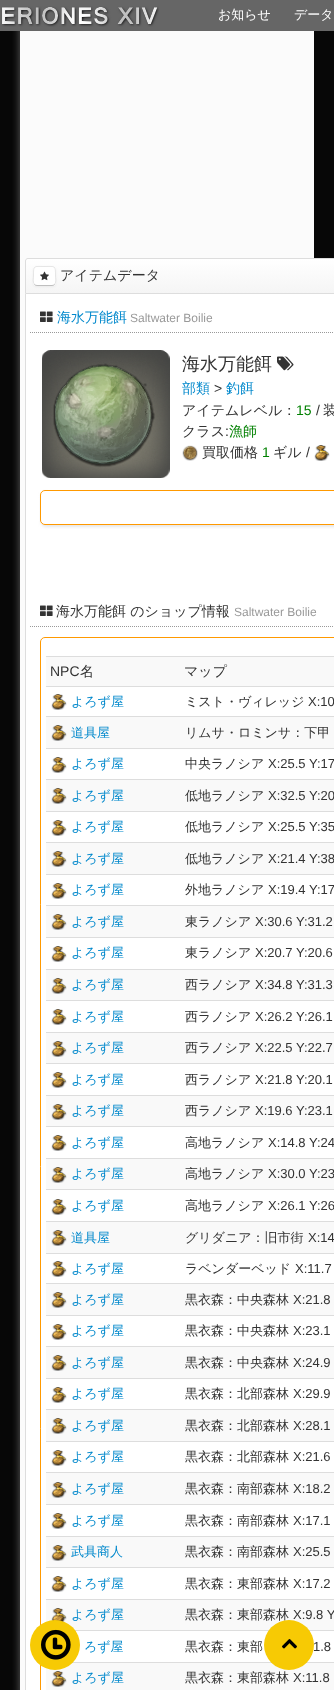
async function draw(canvas) {
  canvas.width = 334
  canvas.height = 1690
  const ctx = canvas.getContext('2d')
  ctx.miterLimit = 4
  ctx.fontKerning = 'normal'
  async function loadImage(src) {
    const img = new Image()
    img.src = src
    await img.decode()
    return img
  }
  let gradient

  ctx.fillStyle = '#070707'
  ctx.fillRect(0, 0, 334, 1690)
  ctx.fillStyle = '#fbfbfb'
  ctx.fillRect(20, 31, 294, 1659)
  ctx.save()
  ctx.beginPath()
  ctx.rect(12, 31, 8, 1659)
  ctx.clip()
  ctx.fillStyle = '#616161'
  ctx.filter = 'blur(4px)'
  ctx.beginPath()
  ctx.rect(20, -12, 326, 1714)
  ctx.fill()
  ctx.filter = 'none'
  ctx.restore()
  ctx.fillStyle = '#666'
  ctx.fillRect(0, 0, 334, 31)
  ctx.drawImage(await loadImage('image0.png'), 1, 6, 158, 21)
  ctx.font = '500 13px WenQuanYi Zen Hei'
  ctx.fillStyle = '#fff'
  ctx.fillText('お知らせ', 218, 19)
  ctx.fillText('データ', 294, 19)
  gradient = ctx.createLinearGradient(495, 259, 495, 293)
  gradient.addColorStop(0, '#fff')
  gradient.addColorStop(1, '#f5f5f5')
  ctx.fillStyle = gradient
  ctx.fillRect(25, 259, 309, 34)
  ctx.beginPath()
  ctx.moveTo(28, 258.5)
  ctx.lineTo(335, 258.5)
  ctx.bezierCurveTo(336.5, 258.5, 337.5, 259.5, 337.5, 261)
  ctx.lineTo(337.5, 293.5)
  ctx.lineTo(25.5, 293.5)
  ctx.lineTo(25.5, 261)
  ctx.bezierCurveTo(25.5, 259.5, 26.5, 258.5, 28, 258.5)
  ctx.closePath()
  ctx.strokeStyle = '#ddd'
  ctx.stroke()
  ctx.fillStyle = '#0000000d'
  ctx.filter = 'blur(1px)'
  ctx.beginPath()
  ctx.roundRect(33, 267, 23, 20, 4)
  ctx.fill()
  ctx.filter = 'none'
  ctx.fillStyle = '#fff'
  ctx.beginPath()
  ctx.roundRect(33, 266, 23, 20, 4)
  ctx.fill()
  ctx.beginPath()
  ctx.moveTo(54.5, 284.5)
  ctx.bezierCurveTo(54, 285, 53, 285.5, 52, 285.5)
  ctx.lineTo(37, 285.5)
  ctx.bezierCurveTo(36, 285.5, 35, 285, 34.5, 284.5)
  ctx.strokeStyle = '#00000040'
  ctx.stroke()
  ctx.beginPath()
  ctx.moveTo(34.5, 284.5)
  ctx.bezierCurveTo(32.5, 282.5, 33.5, 278, 33.5, 276)
  ctx.bezierCurveTo(33.5, 265, 33.5, 266.5, 44.5, 266.5)
  ctx.bezierCurveTo(55.5, 266.5, 55.5, 265, 55.5, 276)
  ctx.bezierCurveTo(55.5, 278, 56.5, 282.5, 54.5, 284.5)
  ctx.strokeStyle = '#0000001a'
  ctx.stroke()
  ctx.drawImage(await loadImage('image1.png'), 40, 271, 9, 10)
  ctx.font = '500 14px WenQuanYi Zen Hei'
  ctx.fillStyle = '#333'
  ctx.fillText('アイテムデータ', 60, 280)
  ctx.fillStyle = '#ddd'
  ctx.beginPath()
  ctx.moveTo(25, 294)
  ctx.lineTo(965, 294)
  ctx.lineTo(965, 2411)
  ctx.bezierCurveTo(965, 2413, 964, 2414, 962, 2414)
  ctx.lineTo(28, 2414)
  ctx.bezierCurveTo(26, 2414, 25, 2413, 25, 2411)
  ctx.closePath()
  ctx.moveTo(26, 294)
  ctx.lineTo(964, 294)
  ctx.lineTo(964, 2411)
  ctx.bezierCurveTo(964, 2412, 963, 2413, 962, 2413)
  ctx.lineTo(28, 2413)
  ctx.bezierCurveTo(27, 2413, 26, 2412, 26, 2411)
  ctx.closePath()
  ctx.fill('evenodd')
  ctx.fillStyle = '#fff'
  ctx.fillRect(26, 294, 308, 1396)
  ctx.beginPath()
  ctx.moveTo(30, 332.5)
  ctx.lineTo(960, 332.5)
  ctx.strokeStyle = '#999'
  ctx.setLineDash([1, 1])
  ctx.stroke()
  ctx.drawImage(await loadImage('image2.png'), 40, 311, 13, 11)
  ctx.fillStyle = '#08c'
  ctx.fillText('海水万能餌', 57, 322)
  ctx.font = '12px Liberation Sans'
  ctx.fillStyle = '#999'
  ctx.fillText('Saltwater Boilie', 130, 322)
  ctx.drawImage(await loadImage('image3.png'), 42, 350, 128, 128)
  ctx.font = '500 18px WenQuanYi Zen Hei'
  ctx.fillStyle = '#333'
  ctx.fillText('海水万能餌', 182, 370)
  ctx.drawImage(await loadImage('image4.png'), 277, 356, 17, 15)
  ctx.font = '500 14px WenQuanYi Zen Hei'
  ctx.fillStyle = '#08c'
  ctx.fillText('部類', 182, 393)
  ctx.font = '14px Liberation Sans'
  ctx.fillStyle = '#333'
  ctx.fillText('>', 214, 393)
  ctx.font = '500 14px WenQuanYi Zen Hei'
  ctx.fillStyle = '#08c'
  ctx.fillText('釣餌', 226, 393)
  ctx.fillStyle = '#333'
  ctx.fillText('アイテムレベル：', 182, 415)
  ctx.font = '14px Liberation Sans'
  ctx.fillStyle = '#008000'
  ctx.fillText('15', 296, 415)
  ctx.fillStyle = '#333'
  ctx.fillText('/', 316, 415)
  ctx.font = '500 14px WenQuanYi Zen Hei'
  ctx.fillText('装', 323, 415)
  ctx.fillText('クラス', 182, 436)
  ctx.font = '14px Liberation Sans'
  ctx.fillText(':', 225, 436)
  ctx.font = '500 14px WenQuanYi Zen Hei'
  ctx.fillStyle = '#008000'
  ctx.fillText('漁師', 229, 436)
  ctx.drawImage(await loadImage('image5.png'), 182, 445, 16, 16)
  ctx.fillStyle = '#333'
  ctx.fillText('買取価格', 202, 457)
  ctx.font = '14px Liberation Sans'
  ctx.fillStyle = '#008000'
  ctx.fillText('1', 262, 457)
  ctx.font = '500 14px WenQuanYi Zen Hei'
  ctx.fillStyle = '#333'
  ctx.fillText('ギル', 273, 457)
  ctx.font = '14px Liberation Sans'
  ctx.fillText('/', 306, 457)
  ctx.drawImage(await loadImage('image6.png'), 314, 445, 16, 16)
  ctx.fillStyle = '#e7e7e7'
  ctx.filter = 'blur(1.5px)'
  ctx.beginPath()
  ctx.roundRect(41, 492, 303, 35, 5)
  ctx.fill()
  ctx.filter = 'none'
  ctx.fillStyle = '#fff'
  ctx.beginPath()
  ctx.roundRect(40.5, 490.5, 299, 34, 4.5)
  ctx.fill()
  ctx.strokeStyle = '#f90'
  ctx.setLineDash([])
  ctx.stroke()
  ctx.beginPath()
  ctx.moveTo(30, 626.5)
  ctx.lineTo(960, 626.5)
  ctx.strokeStyle = '#999'
  ctx.setLineDash([1, 1])
  ctx.stroke()
  ctx.drawImage(await loadImage('image2.png'), 40, 605, 13, 11)
  ctx.font = '500 14px WenQuanYi Zen Hei'
  ctx.fillStyle = '#333'
  ctx.fillText('海水万能餌 のショップ情報', 56, 616)
  ctx.font = '12px Liberation Sans'
  ctx.fillStyle = '#999'
  ctx.fillText('Saltwater Boilie', 234, 616)
  ctx.beginPath()
  ctx.roundRect(40.5, 637.5, 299, 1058, 4.5)
  ctx.strokeStyle = '#f90'
  ctx.setLineDash([])
  ctx.stroke()
  ctx.fillStyle = '#f9f9f9'
  ctx.fillRect(46, 657, 288, 29)
  ctx.font = '14px Liberation Sans'
  ctx.fillStyle = '#333'
  ctx.fillText('NPC', 50, 676)
  ctx.font = '500 14px WenQuanYi Zen Hei'
  ctx.fillText('名', 80, 676)
  ctx.fillStyle = '#ddd'
  ctx.fillRect(46, 656, 288, 1)
  ctx.fillStyle = '#333'
  ctx.fillText('マップ', 184, 676)
  ctx.drawImage(await loadImage('image6.png'), 51, 694, 16, 16)
  ctx.font = '500 13px WenQuanYi Zen Hei'
  ctx.fillStyle = '#08c'
  ctx.fillText('よろず屋', 71, 706)
  ctx.fillStyle = '#ddd'
  ctx.fillRect(46, 686, 288, 1)
  ctx.fillStyle = '#333'
  ctx.fillText('ミスト・ヴィレッジ', 185, 706)
  ctx.font = '13px Liberation Sans'
  ctx.fillText('X:10', 308, 706)
  ctx.fillStyle = '#f9f9f9'
  ctx.fillRect(46, 717, 288, 31)
  ctx.drawImage(await loadImage('image7.png'), 51, 725, 16, 16)
  ctx.font = '500 13px WenQuanYi Zen Hei'
  ctx.fillStyle = '#08c'
  ctx.fillText('道具屋', 71, 737)
  ctx.fillStyle = '#ddd'
  ctx.fillRect(46, 716, 288, 1)
  ctx.fillStyle = '#333'
  ctx.fillText('リムサ・ロミンサ：下甲', 185, 737)
  ctx.drawImage(await loadImage('image6.png'), 51, 757, 16, 16)
  ctx.fillStyle = '#08c'
  ctx.fillText('よろず屋', 71, 768)
  ctx.fillStyle = '#ddd'
  ctx.fillRect(46, 748, 288, 1)
  ctx.fillStyle = '#333'
  ctx.fillText('中央ラノシア', 185, 768)
  ctx.font = '13px Liberation Sans'
  ctx.fillText('X:25.5 Y:17', 268, 768)
  ctx.fillStyle = '#f9f9f9'
  ctx.fillRect(46, 780, 288, 31)
  ctx.drawImage(await loadImage('image7.png'), 51, 788, 16, 16)
  ctx.font = '500 13px WenQuanYi Zen Hei'
  ctx.fillStyle = '#08c'
  ctx.fillText('よろず屋', 71, 800)
  ctx.fillStyle = '#ddd'
  ctx.fillRect(46, 779, 288, 1)
  ctx.fillStyle = '#333'
  ctx.fillText('低地ラノシア', 185, 800)
  ctx.font = '13px Liberation Sans'
  ctx.fillText('X:32.5 Y:20', 268, 800)
  ctx.drawImage(await loadImage('image6.png'), 51, 820, 16, 16)
  ctx.font = '500 13px WenQuanYi Zen Hei'
  ctx.fillStyle = '#08c'
  ctx.fillText('よろず屋', 71, 831)
  ctx.fillStyle = '#ddd'
  ctx.fillRect(46, 811, 288, 1)
  ctx.fillStyle = '#333'
  ctx.fillText('低地ラノシア', 185, 831)
  ctx.font = '13px Liberation Sans'
  ctx.fillText('X:25.5 Y:35', 268, 831)
  ctx.fillStyle = '#f9f9f9'
  ctx.fillRect(46, 843, 288, 31)
  ctx.drawImage(await loadImage('image7.png'), 51, 851, 16, 16)
  ctx.font = '500 13px WenQuanYi Zen Hei'
  ctx.fillStyle = '#08c'
  ctx.fillText('よろず屋', 71, 863)
  ctx.fillStyle = '#ddd'
  ctx.fillRect(46, 842, 288, 1)
  ctx.fillStyle = '#333'
  ctx.fillText('低地ラノシア', 185, 863)
  ctx.font = '13px Liberation Sans'
  ctx.fillText('X:21.4 Y:38', 268, 863)
  ctx.drawImage(await loadImage('image6.png'), 51, 883, 16, 16)
  ctx.font = '500 13px WenQuanYi Zen Hei'
  ctx.fillStyle = '#08c'
  ctx.fillText('よろず屋', 71, 894)
  ctx.fillStyle = '#ddd'
  ctx.fillRect(46, 874, 288, 1)
  ctx.fillStyle = '#333'
  ctx.fillText('外地ラノシア', 185, 894)
  ctx.font = '13px Liberation Sans'
  ctx.fillText('X:19.4 Y:17', 268, 894)
  ctx.fillStyle = '#f9f9f9'
  ctx.fillRect(46, 906, 288, 31)
  ctx.drawImage(await loadImage('image7.png'), 51, 914, 16, 16)
  ctx.font = '500 13px WenQuanYi Zen Hei'
  ctx.fillStyle = '#08c'
  ctx.fillText('よろず屋', 71, 926)
  ctx.fillStyle = '#ddd'
  ctx.fillRect(46, 905, 288, 1)
  ctx.fillStyle = '#333'
  ctx.fillText('東ラノシア', 185, 926)
  ctx.font = '13px Liberation Sans'
  ctx.fillText('X:30.6 Y:31.2', 255, 926)
  ctx.drawImage(await loadImage('image6.png'), 51, 946, 16, 16)
  ctx.font = '500 13px WenQuanYi Zen Hei'
  ctx.fillStyle = '#08c'
  ctx.fillText('よろず屋', 71, 957)
  ctx.fillStyle = '#ddd'
  ctx.fillRect(46, 937, 288, 1)
  ctx.fillStyle = '#333'
  ctx.fillText('東ラノシア', 185, 957)
  ctx.font = '13px Liberation Sans'
  ctx.fillText('X:20.7 Y:20.6', 255, 957)
  ctx.fillStyle = '#f9f9f9'
  ctx.fillRect(46, 970, 288, 30)
  ctx.drawImage(await loadImage('image7.png'), 51, 978, 16, 16)
  ctx.font = '500 13px WenQuanYi Zen Hei'
  ctx.fillStyle = '#08c'
  ctx.fillText('よろず屋', 71, 989)
  ctx.fillStyle = '#ddd'
  ctx.fillRect(46, 969, 288, 1)
  ctx.fillStyle = '#333'
  ctx.fillText('西ラノシア', 185, 989)
  ctx.font = '13px Liberation Sans'
  ctx.fillText('X:34.8 Y:31.3', 255, 989)
  ctx.drawImage(await loadImage('image6.png'), 51, 1009, 16, 16)
  ctx.font = '500 13px WenQuanYi Zen Hei'
  ctx.fillStyle = '#08c'
  ctx.fillText('よろず屋', 71, 1021)
  ctx.fillStyle = '#ddd'
  ctx.fillRect(46, 1000, 288, 1)
  ctx.fillStyle = '#333'
  ctx.fillText('西ラノシア', 185, 1021)
  ctx.font = '13px Liberation Sans'
  ctx.fillText('X:26.2 Y:26.1', 255, 1021)
  ctx.fillStyle = '#f9f9f9'
  ctx.fillRect(46, 1033, 288, 30)
  ctx.drawImage(await loadImage('image7.png'), 51, 1041, 16, 16)
  ctx.font = '500 13px WenQuanYi Zen Hei'
  ctx.fillStyle = '#08c'
  ctx.fillText('よろず屋', 71, 1052)
  ctx.fillStyle = '#ddd'
  ctx.fillRect(46, 1032, 288, 1)
  ctx.fillStyle = '#333'
  ctx.fillText('西ラノシア', 185, 1052)
  ctx.font = '13px Liberation Sans'
  ctx.fillText('X:22.5 Y:22.7', 255, 1052)
  ctx.drawImage(await loadImage('image6.png'), 51, 1072, 16, 16)
  ctx.font = '500 13px WenQuanYi Zen Hei'
  ctx.fillStyle = '#08c'
  ctx.fillText('よろず屋', 71, 1084)
  ctx.fillStyle = '#ddd'
  ctx.fillRect(46, 1063, 288, 1)
  ctx.fillStyle = '#333'
  ctx.fillText('西ラノシア', 185, 1084)
  ctx.font = '13px Liberation Sans'
  ctx.fillText('X:21.8 Y:20.1', 255, 1084)
  ctx.fillStyle = '#f9f9f9'
  ctx.fillRect(46, 1096, 288, 30)
  ctx.drawImage(await loadImage('image7.png'), 51, 1104, 16, 16)
  ctx.font = '500 13px WenQuanYi Zen Hei'
  ctx.fillStyle = '#08c'
  ctx.fillText('よろず屋', 71, 1115)
  ctx.fillStyle = '#ddd'
  ctx.fillRect(46, 1095, 288, 1)
  ctx.fillStyle = '#333'
  ctx.fillText('西ラノシア', 185, 1115)
  ctx.font = '13px Liberation Sans'
  ctx.fillText('X:19.6 Y:23.1', 255, 1115)
  ctx.drawImage(await loadImage('image6.png'), 51, 1135, 16, 16)
  ctx.font = '500 13px WenQuanYi Zen Hei'
  ctx.fillStyle = '#08c'
  ctx.fillText('よろず屋', 71, 1147)
  ctx.fillStyle = '#ddd'
  ctx.fillRect(46, 1126, 288, 1)
  ctx.fillStyle = '#333'
  ctx.fillText('高地ラノシア', 185, 1147)
  ctx.font = '13px Liberation Sans'
  ctx.fillText('X:14.8 Y:24', 268, 1147)
  ctx.fillStyle = '#f9f9f9'
  ctx.fillRect(46, 1159, 288, 30)
  ctx.drawImage(await loadImage('image7.png'), 51, 1167, 16, 16)
  ctx.font = '500 13px WenQuanYi Zen Hei'
  ctx.fillStyle = '#08c'
  ctx.fillText('よろず屋', 71, 1178)
  ctx.fillStyle = '#ddd'
  ctx.fillRect(46, 1158, 288, 1)
  ctx.fillStyle = '#333'
  ctx.fillText('高地ラノシア', 185, 1178)
  ctx.font = '13px Liberation Sans'
  ctx.fillText('X:30.0 Y:23', 268, 1178)
  ctx.drawImage(await loadImage('image6.png'), 51, 1199, 16, 16)
  ctx.font = '500 13px WenQuanYi Zen Hei'
  ctx.fillStyle = '#08c'
  ctx.fillText('よろず屋', 71, 1210)
  ctx.fillStyle = '#ddd'
  ctx.fillRect(46, 1189, 288, 1)
  ctx.fillStyle = '#333'
  ctx.fillText('高地ラノシア', 185, 1210)
  ctx.font = '13px Liberation Sans'
  ctx.fillText('X:26.1 Y:26', 268, 1210)
  ctx.fillStyle = '#f9f9f9'
  ctx.fillRect(46, 1222, 288, 31)
  ctx.drawImage(await loadImage('image7.png'), 51, 1230, 16, 16)
  ctx.font = '500 13px WenQuanYi Zen Hei'
  ctx.fillStyle = '#08c'
  ctx.fillText('道具屋', 71, 1242)
  ctx.fillStyle = '#ddd'
  ctx.fillRect(46, 1221, 288, 1)
  ctx.fillStyle = '#333'
  ctx.fillText('グリダニア：旧市街', 185, 1242)
  ctx.font = '13px Liberation Sans'
  ctx.fillText('X:14', 308, 1242)
  ctx.drawImage(await loadImage('image6.png'), 51, 1261, 16, 16)
  ctx.font = '500 13px WenQuanYi Zen Hei'
  ctx.fillStyle = '#08c'
  ctx.fillText('よろず屋', 71, 1273)
  ctx.fillStyle = '#ddd'
  ctx.fillRect(46, 1253, 288, 1)
  ctx.fillStyle = '#333'
  ctx.fillText('ラベンダーベッド', 185, 1273)
  ctx.font = '13px Liberation Sans'
  ctx.fillText('X:11.7', 295, 1273)
  ctx.fillStyle = '#f9f9f9'
  ctx.fillRect(46, 1284, 288, 31)
  ctx.drawImage(await loadImage('image7.png'), 51, 1292, 16, 16)
  ctx.font = '500 13px WenQuanYi Zen Hei'
  ctx.fillStyle = '#08c'
  ctx.fillText('よろず屋', 71, 1304)
  ctx.fillStyle = '#ddd'
  ctx.fillRect(46, 1283, 288, 1)
  ctx.fillStyle = '#333'
  ctx.fillText('黒衣森：中央森林', 185, 1304)
  ctx.font = '13px Liberation Sans'
  ctx.fillText('X:21.8', 293, 1304)
  ctx.drawImage(await loadImage('image6.png'), 51, 1324, 16, 16)
  ctx.font = '500 13px WenQuanYi Zen Hei'
  ctx.fillStyle = '#08c'
  ctx.fillText('よろず屋', 71, 1335)
  ctx.fillStyle = '#ddd'
  ctx.fillRect(46, 1315, 288, 1)
  ctx.fillStyle = '#333'
  ctx.fillText('黒衣森：中央森林', 185, 1335)
  ctx.font = '13px Liberation Sans'
  ctx.fillText('X:23.1', 293, 1335)
  ctx.fillStyle = '#f9f9f9'
  ctx.fillRect(46, 1347, 288, 31)
  ctx.drawImage(await loadImage('image7.png'), 51, 1355, 16, 16)
  ctx.font = '500 13px WenQuanYi Zen Hei'
  ctx.fillStyle = '#08c'
  ctx.fillText('よろず屋', 71, 1367)
  ctx.fillStyle = '#ddd'
  ctx.fillRect(46, 1346, 288, 1)
  ctx.fillStyle = '#333'
  ctx.fillText('黒衣森：中央森林', 185, 1367)
  ctx.font = '13px Liberation Sans'
  ctx.fillText('X:24.9', 293, 1367)
  ctx.drawImage(await loadImage('image6.png'), 51, 1387, 16, 16)
  ctx.font = '500 13px WenQuanYi Zen Hei'
  ctx.fillStyle = '#08c'
  ctx.fillText('よろず屋', 71, 1398)
  ctx.fillStyle = '#ddd'
  ctx.fillRect(46, 1378, 288, 1)
  ctx.fillStyle = '#333'
  ctx.fillText('黒衣森：北部森林', 185, 1398)
  ctx.font = '13px Liberation Sans'
  ctx.fillText('X:29.9', 293, 1398)
  ctx.fillStyle = '#f9f9f9'
  ctx.fillRect(46, 1410, 288, 31)
  ctx.drawImage(await loadImage('image7.png'), 51, 1418, 16, 16)
  ctx.font = '500 13px WenQuanYi Zen Hei'
  ctx.fillStyle = '#08c'
  ctx.fillText('よろず屋', 71, 1430)
  ctx.fillStyle = '#ddd'
  ctx.fillRect(46, 1409, 288, 1)
  ctx.fillStyle = '#333'
  ctx.fillText('黒衣森：北部森林', 185, 1430)
  ctx.font = '13px Liberation Sans'
  ctx.fillText('X:28.1', 293, 1430)
  ctx.drawImage(await loadImage('image6.png'), 51, 1450, 16, 16)
  ctx.font = '500 13px WenQuanYi Zen Hei'
  ctx.fillStyle = '#08c'
  ctx.fillText('よろず屋', 71, 1461)
  ctx.fillStyle = '#ddd'
  ctx.fillRect(46, 1441, 288, 1)
  ctx.fillStyle = '#333'
  ctx.fillText('黒衣森：北部森林', 185, 1461)
  ctx.font = '13px Liberation Sans'
  ctx.fillText('X:21.6', 293, 1461)
  ctx.fillStyle = '#f9f9f9'
  ctx.fillRect(46, 1473, 288, 31)
  ctx.drawImage(await loadImage('image7.png'), 51, 1482, 16, 16)
  ctx.font = '500 13px WenQuanYi Zen Hei'
  ctx.fillStyle = '#08c'
  ctx.fillText('よろず屋', 71, 1493)
  ctx.fillStyle = '#ddd'
  ctx.fillRect(46, 1472, 288, 1)
  ctx.fillStyle = '#333'
  ctx.fillText('黒衣森：南部森林', 185, 1493)
  ctx.font = '13px Liberation Sans'
  ctx.fillText('X:18.2', 293, 1493)
  ctx.drawImage(await loadImage('image6.png'), 51, 1513, 16, 16)
  ctx.font = '500 13px WenQuanYi Zen Hei'
  ctx.fillStyle = '#08c'
  ctx.fillText('よろず屋', 71, 1525)
  ctx.fillStyle = '#ddd'
  ctx.fillRect(46, 1504, 288, 1)
  ctx.fillStyle = '#333'
  ctx.fillText('黒衣森：南部森林', 185, 1525)
  ctx.font = '13px Liberation Sans'
  ctx.fillText('X:17.1', 293, 1525)
  ctx.fillStyle = '#f9f9f9'
  ctx.fillRect(46, 1537, 288, 30)
  ctx.drawImage(await loadImage('image7.png'), 51, 1545, 16, 16)
  ctx.font = '500 13px WenQuanYi Zen Hei'
  ctx.fillStyle = '#08c'
  ctx.fillText('武具商人', 71, 1556)
  ctx.fillStyle = '#ddd'
  ctx.fillRect(46, 1536, 288, 1)
  ctx.fillStyle = '#333'
  ctx.fillText('黒衣森：南部森林', 185, 1556)
  ctx.font = '13px Liberation Sans'
  ctx.fillText('X:25.5', 293, 1556)
  ctx.drawImage(await loadImage('image6.png'), 51, 1576, 16, 16)
  ctx.font = '500 13px WenQuanYi Zen Hei'
  ctx.fillStyle = '#08c'
  ctx.fillText('よろず屋', 71, 1588)
  ctx.fillStyle = '#ddd'
  ctx.fillRect(46, 1567, 288, 1)
  ctx.fillStyle = '#333'
  ctx.fillText('黒衣森：東部森林', 185, 1588)
  ctx.font = '13px Liberation Sans'
  ctx.fillText('X:17.2', 293, 1588)
  ctx.fillStyle = '#f9f9f9'
  ctx.fillRect(46, 1600, 288, 30)
  ctx.drawImage(await loadImage('image8.png'), 51, 1608, 16, 14)
  ctx.font = '500 13px WenQuanYi Zen Hei'
  ctx.fillStyle = '#08c'
  ctx.fillText('よろず屋', 71, 1619)
  ctx.fillStyle = '#ddd'
  ctx.fillRect(46, 1599, 288, 1)
  ctx.fillStyle = '#333'
  ctx.fillText('黒衣森：東部森林', 185, 1619)
  ctx.font = '13px Liberation Sans'
  ctx.fillText('X:9.8 Y', 293, 1619)
  ctx.font = '500 13px WenQuanYi Zen Hei'
  ctx.fillStyle = '#08c'
  ctx.fillText('ろず屋', 84, 1651)
  ctx.fillStyle = '#ddd'
  ctx.fillRect(75, 1630, 259, 1)
  ctx.fillStyle = '#333'
  ctx.fillText('黒衣森：東部', 185, 1651)
  ctx.font = '13px Liberation Sans'
  ctx.fillText('1.8', 313, 1651)
  ctx.fillStyle = '#f9f9f9'
  ctx.fillRect(46, 1663, 288, 27)
  ctx.drawImage(await loadImage('image7.png'), 51, 1671, 16, 16)
  ctx.font = '500 13px WenQuanYi Zen Hei'
  ctx.fillStyle = '#08c'
  ctx.fillText('よろず屋', 71, 1682)
  ctx.fillStyle = '#ddd'
  ctx.fillRect(72, 1662, 262, 1)
  ctx.fillStyle = '#333'
  ctx.fillText('黒衣森：東部森林', 185, 1682)
  ctx.font = '13px Liberation Sans'
  ctx.fillText('X:11.8', 293, 1682)
  ctx.fillStyle = '#f7ca04'
  ctx.beginPath()
  ctx.arc(55, 1645, 25, 0, 2 * Math.PI)
  ctx.fill()
  ctx.drawImage(await loadImage('image9.png'), 41, 1629, 30, 31)
  ctx.beginPath()
  ctx.arc(289, 1645, 25, 0, 2 * Math.PI)
  ctx.fill()
  ctx.drawImage(await loadImage('image10.png'), 282, 1639, 15, 10)
}

draw(document.querySelector('canvas'))
